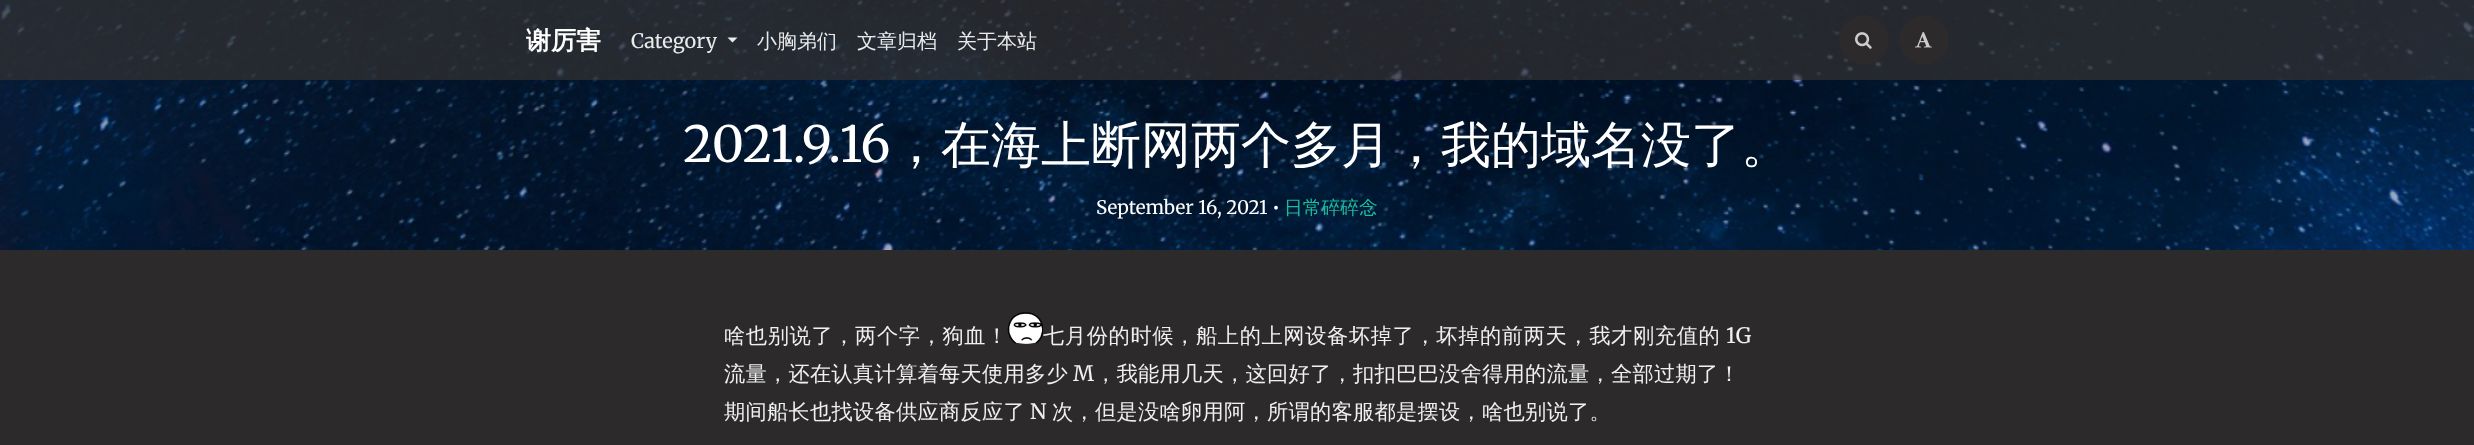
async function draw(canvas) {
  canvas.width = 2474
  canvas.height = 445
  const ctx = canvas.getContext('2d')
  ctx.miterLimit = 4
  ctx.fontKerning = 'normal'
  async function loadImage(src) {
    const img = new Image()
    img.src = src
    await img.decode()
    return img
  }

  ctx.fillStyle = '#2c2a2a'
  ctx.fillRect(0, 0, 2474, 445)
  ctx.drawImage(await loadImage('image2.png'), 0, 0, 2474, 250)
  ctx.fillStyle = '#343232b3'
  ctx.fillRect(0, 0, 2474, 80)
  ctx.font = 'bold 25px WenQuanYi Zen Hei'
  ctx.fillStyle = '#fff'
  ctx.fillText('谢厉害', 526, 49)
  ctx.font = '20px Merriweather'
  ctx.fillStyle = '#e9eaeb'
  ctx.fillText('Category', 631, 48)
  ctx.fillStyle = '#ffffffe6'
  ctx.beginPath()
  ctx.moveTo(727.5, 37.5)
  ctx.lineTo(737.5, 37.5)
  ctx.lineTo(732.5, 42.5)
  ctx.closePath()
  ctx.fill()
  ctx.font = '500 20px WenQuanYi Zen Hei'
  ctx.fillStyle = '#e9eaeb'
  ctx.fillText('小胸弟们', 757, 48)
  ctx.fillText('文章归档', 857, 48)
  ctx.fillText('关于本站', 957, 48)
  ctx.fillStyle = '#2c2a2a'
  ctx.beginPath()
  ctx.arc(1864, 40, 25, 0, 2 * Math.PI)
  ctx.fill()
  ctx.drawImage(await loadImage('image0.png'), 1855, 32, 17, 17)
  ctx.beginPath()
  ctx.arc(1924, 40, 25, 0, 2 * Math.PI)
  ctx.fill()
  ctx.drawImage(await loadImage('image1.png'), 1915, 32, 17, 16)
  ctx.font = '50px Merriweather'
  ctx.fillStyle = '#fff'
  ctx.fillText('2021.9.16', 683, 162)
  ctx.font = '500 50px WenQuanYi Zen Hei'
  ctx.fillText('，在海上断网两个多月，我的域名没了。', 891, 162)
  ctx.font = '18.75px Merriweather'
  ctx.fillText('September 16, 2021 •', 1096, 214)
  ctx.font = '500 18.75px WenQuanYi Zen Hei'
  ctx.fillStyle = '#1abc9c'
  ctx.fillText('日常碎碎念', 1284, 214)
  ctx.letterSpacing = '0.6px'
  ctx.font = '500 21.25px WenQuanYi Zen Hei'
  ctx.fillStyle = '#f0f0f0'
  ctx.fillText('啥也别说了，两个字，狗血！', 724, 343)
  ctx.drawImage(await loadImage('image3.png'), 1007, 312, 36, 32)
  ctx.fillText('七月份的时候，船上的上网设备坏掉了，坏掉的前两天，我才刚充值的', 1043, 343)
  ctx.font = '21.25px Merriweather'
  ctx.fillText('1G', 1726, 343)
  ctx.letterSpacing = '0.25px'
  ctx.font = '500 21.25px WenQuanYi Zen Hei'
  ctx.fillText('流量，还在认真计算着每天使用多少', 724, 381)
  ctx.font = '21.25px Merriweather'
  ctx.fillText('M', 1073, 381)
  ctx.font = '500 21.25px WenQuanYi Zen Hei'
  ctx.fillText('，我能用几天，这回好了，扣扣巴巴没舍得用的流量，全部过期了！', 1095, 381)
  ctx.fillText('期间船长也找设备供应商反应了', 724, 419)
  ctx.font = '21.25px Merriweather'
  ctx.fillText('N', 1030, 419)
  ctx.font = '500 21.25px WenQuanYi Zen Hei'
  ctx.fillText('次，但是没啥卵用阿，所谓的客服都是摆设，啥也别说了。', 1052, 419)
}

draw(document.querySelector('canvas'))
